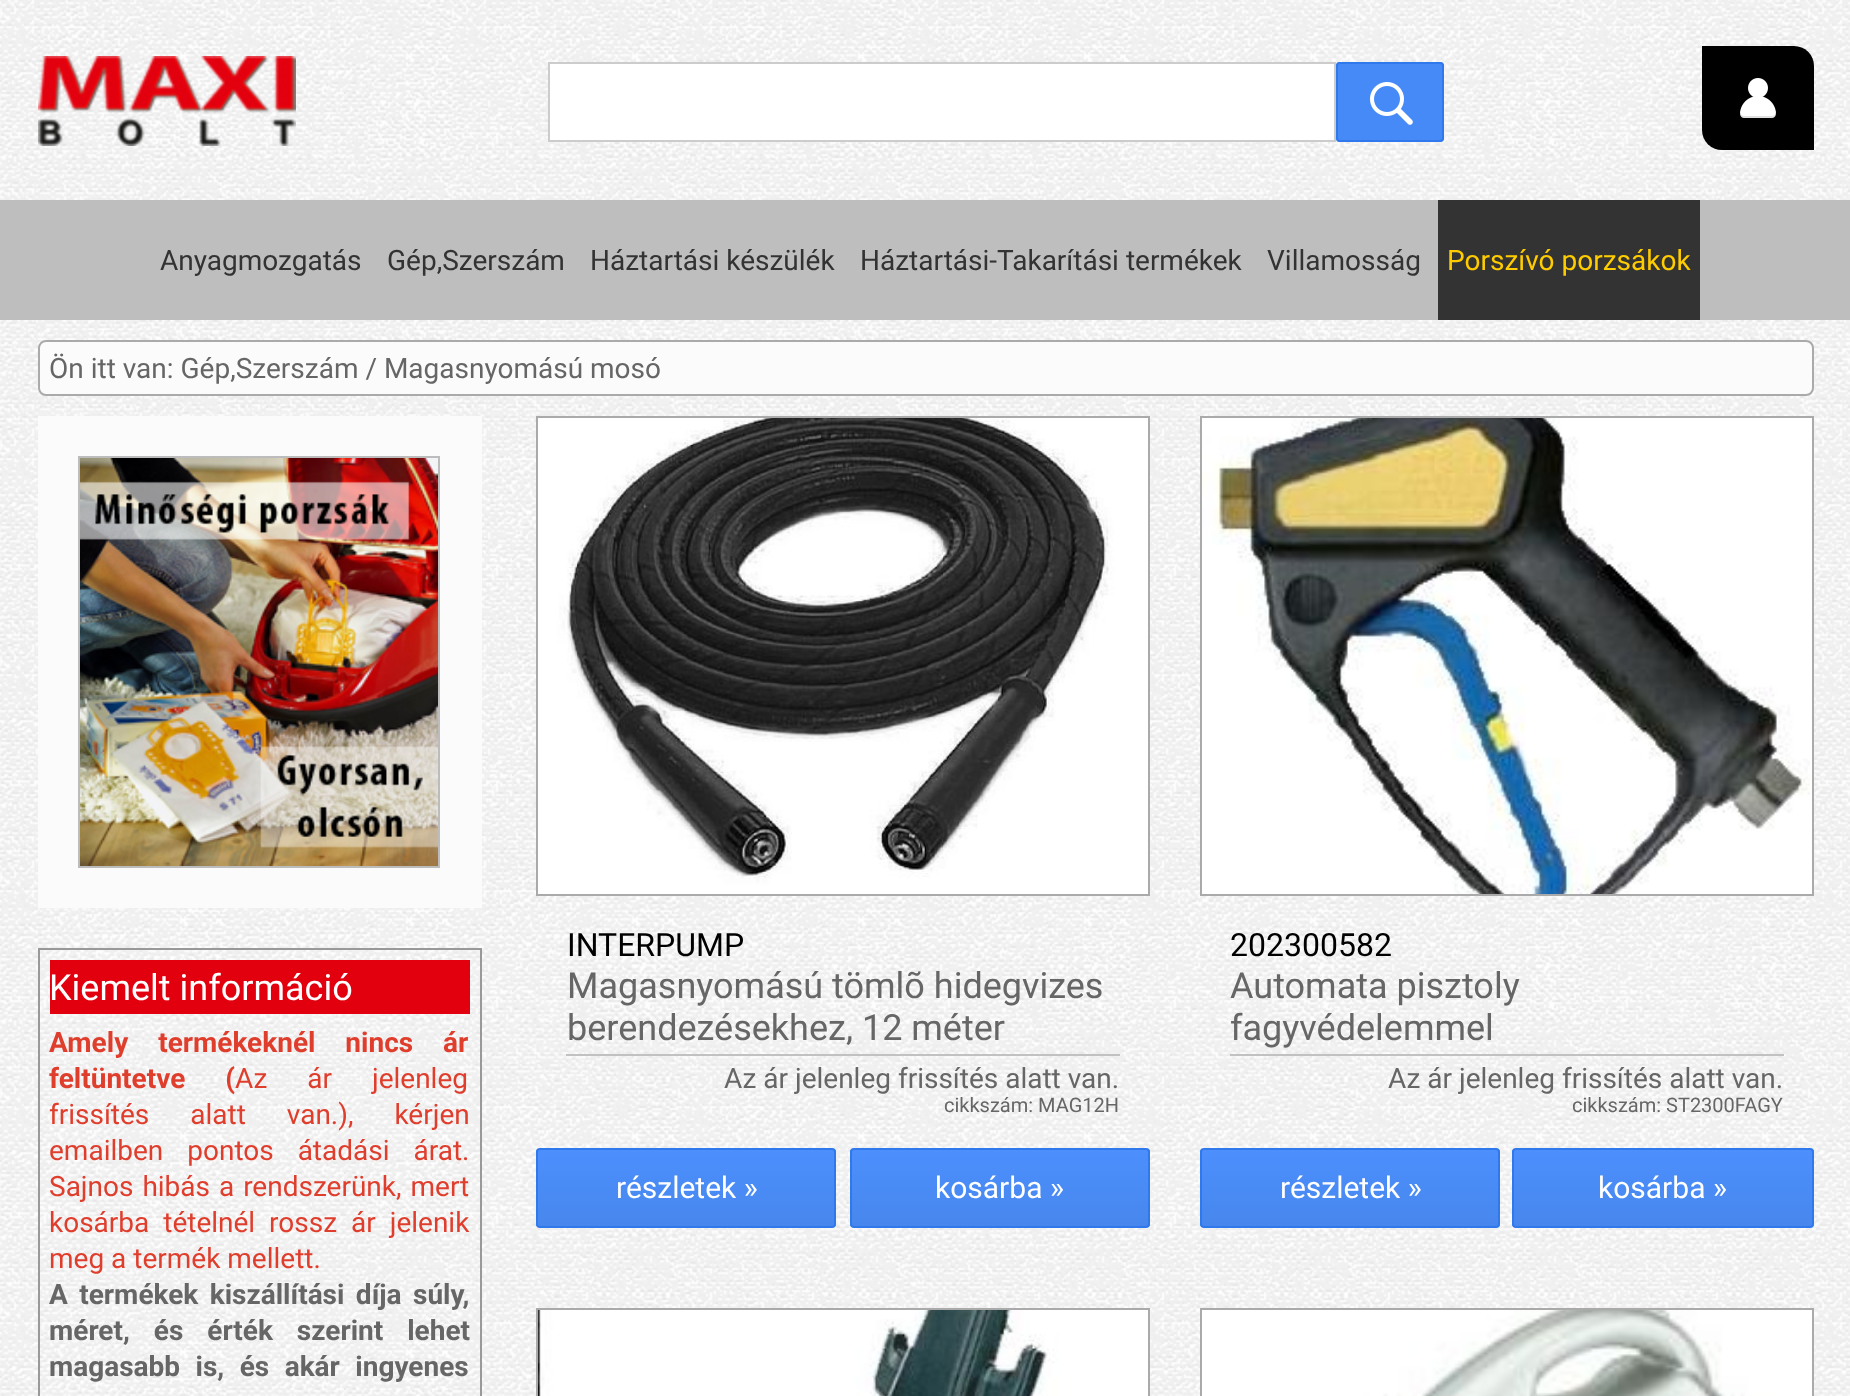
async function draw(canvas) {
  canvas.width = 1850
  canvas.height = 1396
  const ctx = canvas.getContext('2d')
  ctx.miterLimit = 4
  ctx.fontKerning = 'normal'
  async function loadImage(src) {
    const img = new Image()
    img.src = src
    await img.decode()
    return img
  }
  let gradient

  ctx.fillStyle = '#fff'
  ctx.fillRect(0, 0, 1850, 1396)
  ctx.drawImage(await loadImage('image0.png'), 0, 0, 1850, 1396)
  ctx.drawImage(await loadImage('image1.png'), 38, 56, 258, 90)
  ctx.beginPath()
  ctx.rect(549, 63, 786, 78)
  ctx.fill()
  ctx.strokeStyle = '#ccc'
  ctx.lineWidth = 2
  ctx.stroke()
  ctx.fillStyle = '#468af8'
  ctx.beginPath()
  ctx.roundRect(1336, 62, 108, 80, 4)
  ctx.fill()
  ctx.drawImage(await loadImage('image2.png'), 1370, 82, 43, 43)
  ctx.beginPath()
  ctx.roundRect(1337, 63, 106, 78, 3)
  ctx.strokeStyle = '#3079ed'
  ctx.stroke()
  ctx.fillStyle = '#000'
  ctx.beginPath()
  ctx.roundRect(1702, 46, 112, 104, [0, 20, 0, 20])
  ctx.fill()
  ctx.drawImage(await loadImage('image3.png'), 1740, 78, 36, 40)
  ctx.fillStyle = '#bebebe'
  ctx.fillRect(0, 200, 1850, 120)
  ctx.font = '28px Roboto'
  ctx.fillStyle = '#333'
  ctx.fillText('Anyagmozgatás', 160, 270)
  ctx.fillText('Gép,Szerszám', 387, 270)
  ctx.fillText('Háztartási készülék', 590, 270)
  ctx.fillText('Háztartási-Takarítási termékek', 860, 270)
  ctx.fillText('Villamosság', 1267, 270)
  ctx.fillRect(1438, 200, 262, 120)
  ctx.fillStyle = '#fc0'
  ctx.fillText('Porszívó porzsákok', 1447, 270)
  ctx.fillStyle = '#fbfbfb'
  ctx.beginPath()
  ctx.roundRect(39, 341, 1774, 54, 7)
  ctx.fill()
  ctx.strokeStyle = '#aaa'
  ctx.stroke()
  ctx.fillStyle = '#666'
  ctx.fillText('Ön itt van: Gép,Szerszám / Magasnyomású mosó', 49, 378)
  ctx.fillStyle = '#fbfbfb'
  ctx.fillRect(38, 416, 444, 492)
  ctx.strokeStyle = '#bcbcbc'
  ctx.strokeRect(79, 457, 360, 410)
  ctx.drawImage(await loadImage('image4.png'), 80, 458, 358, 408)
  ctx.strokeStyle = '#999'
  ctx.strokeRect(39, 949, 442, 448)
  ctx.fillStyle = '#e3000e'
  ctx.fillRect(50, 960, 420, 54)
  ctx.font = '36px Roboto'
  ctx.fillStyle = '#fff'
  ctx.fillText('Kiemelt információ', 49, 1000)
  ctx.wordSpacing = '23px'
  ctx.font = 'bold 28px Roboto'
  ctx.fillStyle = '#e03e2d'
  ctx.fillText('Amely termékeknél nincs ár', 49, 1052)
  ctx.wordSpacing = '33px'
  ctx.fillText('feltüntetve (', 49, 1088)
  ctx.font = '28px Roboto'
  ctx.fillText('Az ár jelenleg', 235, 1088)
  ctx.wordSpacing = '34px'
  ctx.fillText('frissítés alatt van.), kérjen', 49, 1124)
  ctx.wordSpacing = '17px'
  ctx.fillText('emailben pontos átadási árat.', 49, 1160)
  ctx.wordSpacing = '2px'
  ctx.fillText('Sajnos hibás a rendszerünk, mert', 49, 1196)
  ctx.wordSpacing = '7px'
  ctx.fillText('kosárba tételnél rossz ár jelenik', 49, 1232)
  ctx.wordSpacing = '0px'
  ctx.fillText('meg a termék mellett.', 49, 1268)
  ctx.wordSpacing = '4.5px'
  ctx.font = 'bold 28px Roboto'
  ctx.fillStyle = '#666'
  ctx.fillText('A termékek kiszállítási díja súly,', 49, 1304)
  ctx.wordSpacing = '17px'
  ctx.fillText('méret, és érték szerint lehet', 49, 1340)
  ctx.wordSpacing = '8.5px'
  ctx.fillText('magasabb is, és akár ingyenes', 49, 1376)
  ctx.drawImage(await loadImage('image5.png'), 538, 418, 610, 476)
  ctx.strokeStyle = '#aaa'
  ctx.strokeRect(537, 417, 612, 478)
  ctx.wordSpacing = '0px'
  ctx.font = '32px Roboto'
  ctx.fillStyle = '#000'
  ctx.fillText('INTERPUMP', 567, 956)
  ctx.font = '36px Roboto'
  ctx.fillStyle = '#666'
  ctx.fillText('Magasnyomású tömlõ hidegvizes', 567, 998)
  ctx.fillText('berendezésekhez, 12 méter', 567, 1040)
  ctx.fillStyle = '#c1c1c1'
  ctx.fillRect(566, 1054, 554, 2)
  ctx.font = '28px Roboto'
  ctx.fillStyle = '#666'
  ctx.fillText('Az ár jelenleg frissítés alatt van.', 724, 1088)
  ctx.font = '20px Roboto'
  ctx.fillText('cikkszám: MAG12H', 944, 1112)
  ctx.save()
  ctx.beginPath()
  ctx.roundRect(536, 1148, 300, 80, 4)
  ctx.clip()
  gradient = ctx.createLinearGradient(686, 1150, 686, 1226)
  gradient.addColorStop(0, '#4c8ffd')
  gradient.addColorStop(1, '#4787ed')
  ctx.fillStyle = gradient
  ctx.fillRect(536, 1150, 300, 76)
  ctx.restore()
  ctx.beginPath()
  ctx.roundRect(537, 1149, 298, 78, 3)
  ctx.strokeStyle = '#3079ed'
  ctx.stroke()
  ctx.font = '30px Roboto'
  ctx.fillStyle = '#fff'
  ctx.fillText('részletek »', 616, 1198)
  ctx.save()
  ctx.beginPath()
  ctx.roundRect(850, 1148, 300, 80, 4)
  ctx.clip()
  gradient = ctx.createLinearGradient(1000, 1150, 1000, 1226)
  gradient.addColorStop(0, '#4c8ffd')
  gradient.addColorStop(1, '#4787ed')
  ctx.fillStyle = gradient
  ctx.fillRect(850, 1150, 300, 76)
  ctx.restore()
  ctx.beginPath()
  ctx.roundRect(851, 1149, 298, 78, 3)
  ctx.stroke()
  ctx.fillText('kosárba »', 935, 1198)
  ctx.drawImage(await loadImage('image6.png'), 1202, 418, 610, 476)
  ctx.strokeStyle = '#aaa'
  ctx.strokeRect(1201, 417, 612, 478)
  ctx.font = '32px Roboto'
  ctx.fillStyle = '#000'
  ctx.fillText('202300582', 1230, 956)
  ctx.font = '36px Roboto'
  ctx.fillStyle = '#666'
  ctx.fillText('Automata pisztoly', 1230, 998)
  ctx.fillText('fagyvédelemmel', 1230, 1040)
  ctx.fillStyle = '#c1c1c1'
  ctx.fillRect(1230, 1054, 554, 2)
  ctx.font = '28px Roboto'
  ctx.fillStyle = '#666'
  ctx.fillText('Az ár jelenleg frissítés alatt van.', 1388, 1088)
  ctx.font = '20px Roboto'
  ctx.fillText('cikkszám: ST2300FAGY', 1572, 1112)
  ctx.save()
  ctx.beginPath()
  ctx.roundRect(1200, 1148, 300, 80, 4)
  ctx.clip()
  gradient = ctx.createLinearGradient(1350, 1150, 1350, 1226)
  gradient.addColorStop(0, '#4c8ffd')
  gradient.addColorStop(1, '#4787ed')
  ctx.fillStyle = gradient
  ctx.fillRect(1200, 1150, 300, 76)
  ctx.restore()
  ctx.beginPath()
  ctx.roundRect(1201, 1149, 298, 78, 3)
  ctx.strokeStyle = '#3079ed'
  ctx.stroke()
  ctx.font = '30px Roboto'
  ctx.fillStyle = '#fff'
  ctx.fillText('részletek »', 1280, 1198)
  ctx.save()
  ctx.beginPath()
  ctx.roundRect(1512, 1148, 302, 80, 4)
  ctx.clip()
  gradient = ctx.createLinearGradient(1663, 1150, 1663, 1226)
  gradient.addColorStop(0, '#4c8ffd')
  gradient.addColorStop(1, '#4787ed')
  ctx.fillStyle = gradient
  ctx.fillRect(1512, 1150, 302, 76)
  ctx.restore()
  ctx.beginPath()
  ctx.roundRect(1513, 1149, 300, 78, 3)
  ctx.stroke()
  ctx.fillText('kosárba »', 1598, 1198)
  ctx.drawImage(await loadImage('image7.png'), 538, 1310, 610, 86)
  ctx.strokeStyle = '#aaa'
  ctx.strokeRect(537, 1309, 612, 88)
  ctx.drawImage(await loadImage('image8.png'), 1202, 1310, 610, 86)
  ctx.strokeRect(1201, 1309, 612, 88)
}

draw(document.querySelector('canvas'))
